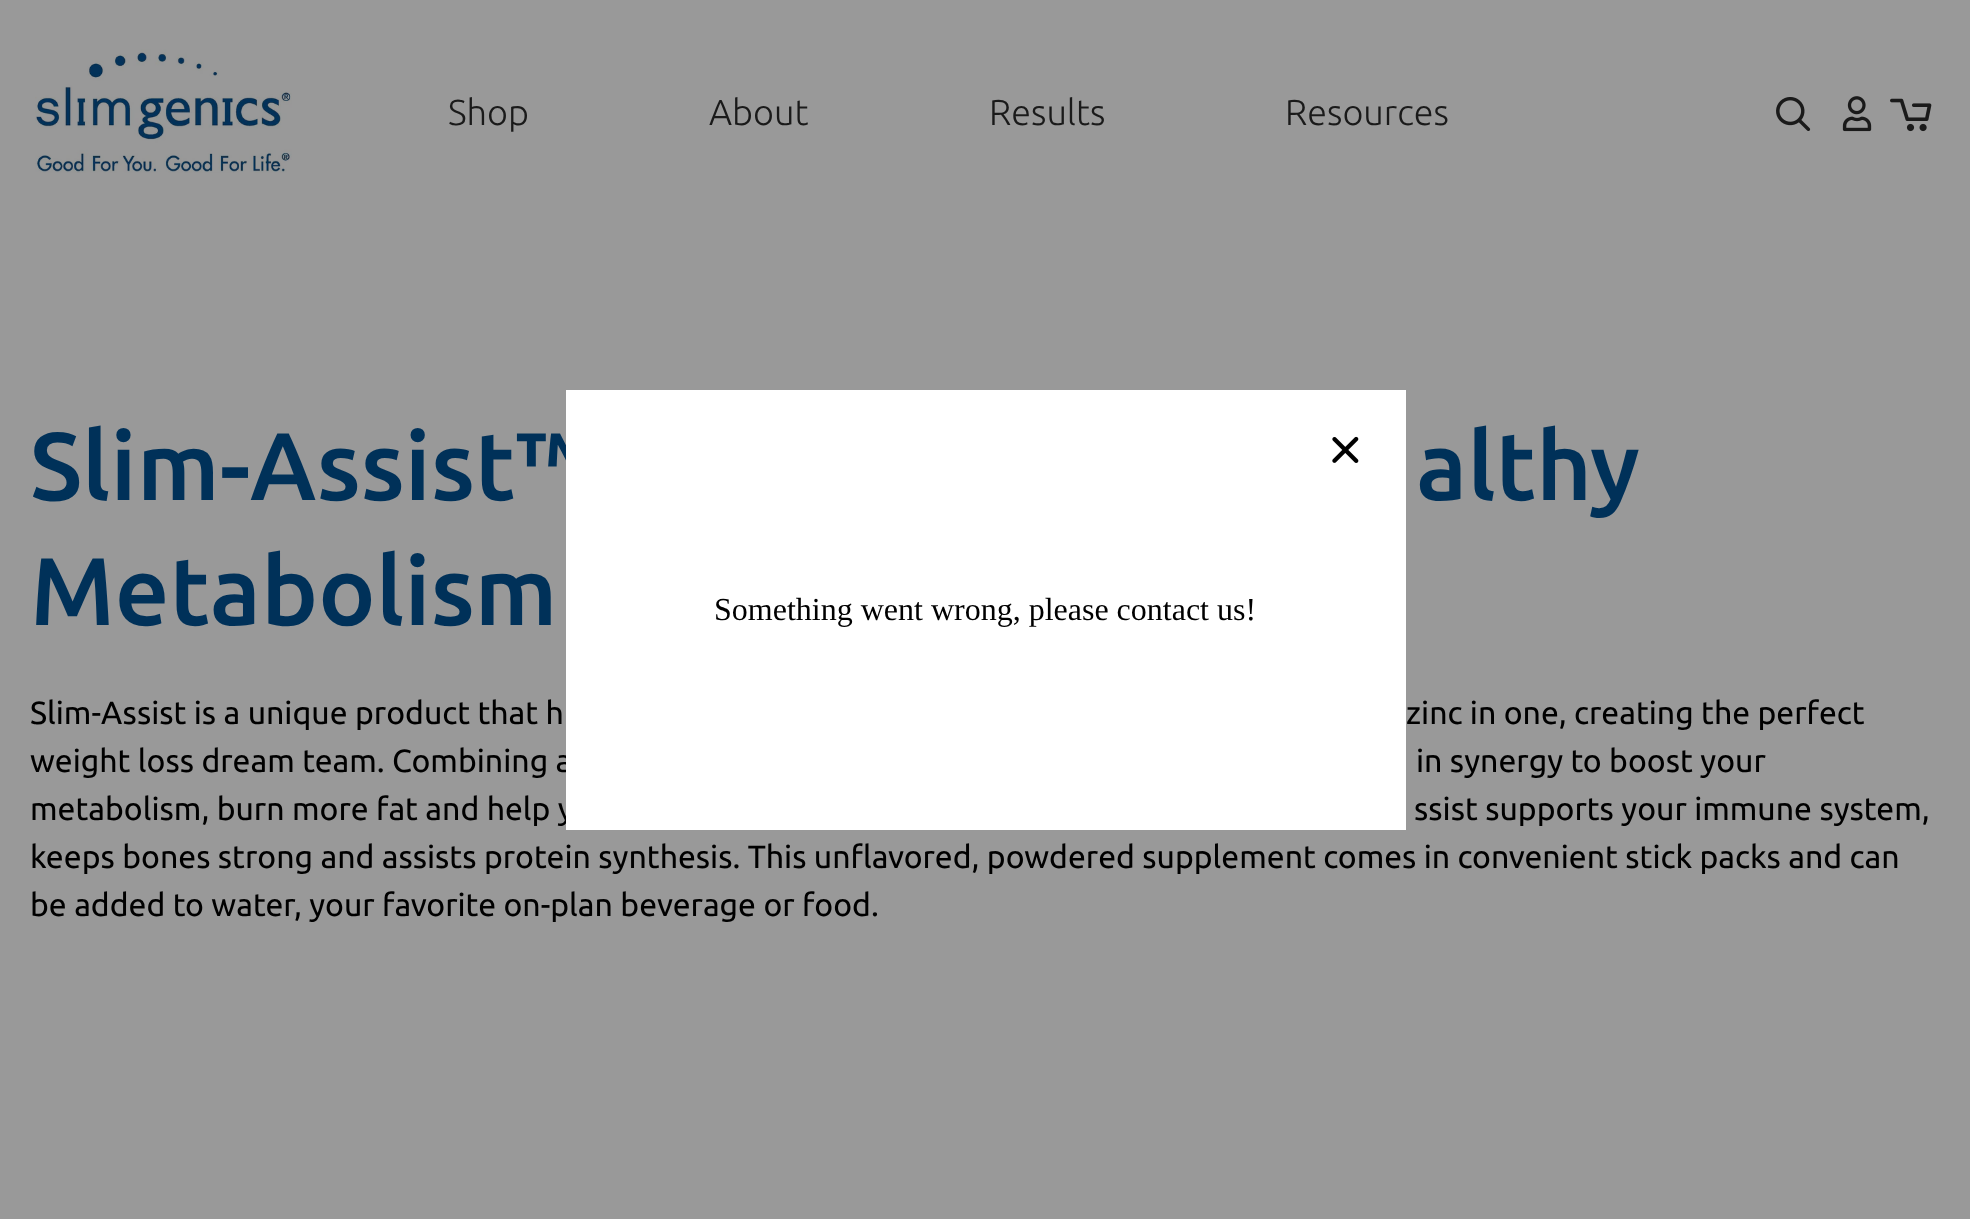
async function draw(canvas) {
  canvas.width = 1970
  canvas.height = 1219
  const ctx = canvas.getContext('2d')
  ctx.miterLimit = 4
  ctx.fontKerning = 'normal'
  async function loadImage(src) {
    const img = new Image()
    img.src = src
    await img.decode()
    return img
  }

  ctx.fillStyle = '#999'
  ctx.fillRect(0, 0, 1970, 1219)
  ctx.drawImage(await loadImage('image0.png'), 35, 49, 257, 124)
  ctx.font = '300 36px Ubuntu'
  ctx.fillStyle = '#1a1a1a'
  ctx.fillText('Shop', 448, 125)
  ctx.fillText('About', 709, 125)
  ctx.fillText('Results', 989, 125)
  ctx.fillText('Resources', 1285, 125)
  ctx.drawImage(await loadImage('image1.png'), 1776, 97, 35, 34)
  ctx.drawImage(await loadImage('image2.png'), 1842, 96, 30, 36)
  ctx.drawImage(await loadImage('image3.png'), 1890, 98, 42, 34)
  ctx.font = '500 96px Ubuntu'
  ctx.fillStyle = '#003159'
  ctx.fillText('Slim-Assist™', 30, 500)
  ctx.fillText('althy', 1416, 500)
  ctx.fillText('Metabolism', 30, 625)
  ctx.font = '32px Ubuntu'
  ctx.fillStyle = '#000'
  ctx.fillText('Slim-Assist is a unique product that h', 30, 724)
  ctx.fillText('zinc in one, creating the perfect', 1406, 724)
  ctx.fillText('weight loss dream team. Combining a', 30, 772)
  ctx.fillText('in synergy to boost your', 1416, 772)
  ctx.fillText('metabolism, burn more fat and help y', 30, 820)
  ctx.fillText('ssist supports your immune system,', 1414, 820)
  ctx.fillText('keeps bones strong and assists protein synthesis. This unflavored, powdered supplement comes in convenient stick packs and can', 30, 868)
  ctx.fillText('be added to water, your favorite on-plan beverage or food.', 30, 916)
  ctx.fillStyle = '#fff'
  ctx.fillRect(566, 390, 840, 440)
  ctx.drawImage(await loadImage('image4.png'), 1332, 436, 27, 27)
  ctx.font = '32px Liberation Serif'
  ctx.fillStyle = '#000'
  ctx.fillText('Something went wrong, please contact us!', 714, 620)
}

draw(document.querySelector('canvas'))
